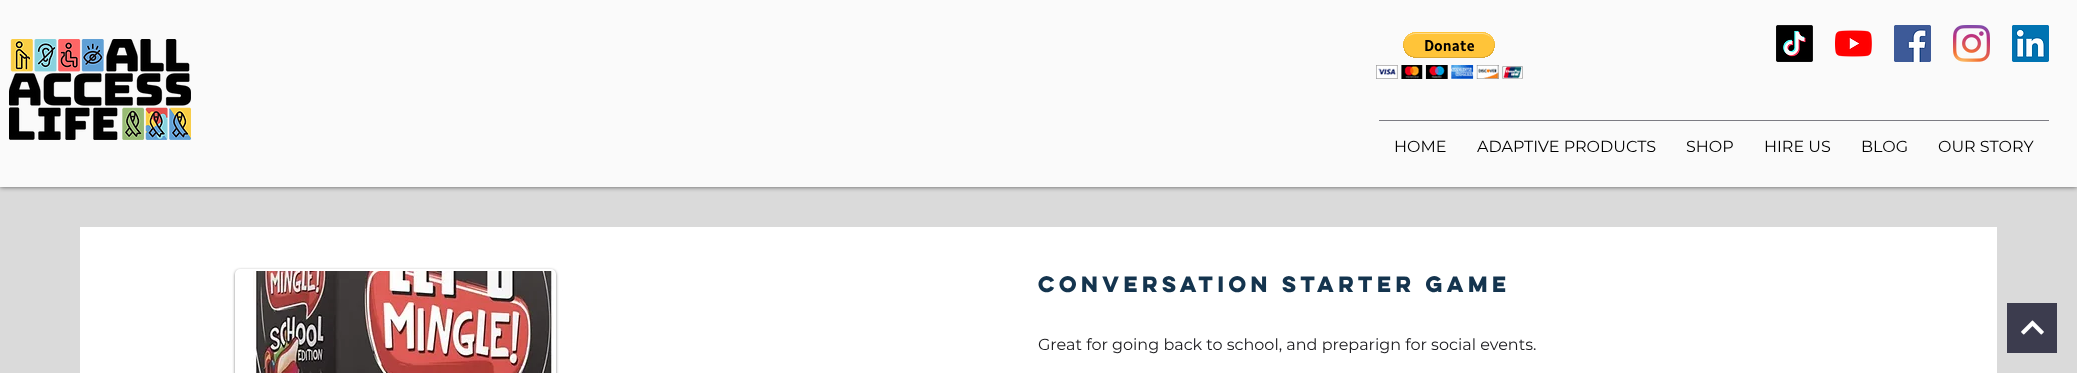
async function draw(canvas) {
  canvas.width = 2077
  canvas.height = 373
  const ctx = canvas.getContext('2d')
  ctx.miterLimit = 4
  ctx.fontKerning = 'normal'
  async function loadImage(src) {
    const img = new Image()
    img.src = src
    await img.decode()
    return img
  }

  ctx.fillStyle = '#dadada'
  ctx.fillRect(0, 0, 2077, 373)
  ctx.fillStyle = '#00000099'
  ctx.filter = 'blur(2.5px)'
  ctx.beginPath()
  ctx.rect(0, 0, 2077, 187)
  ctx.fill()
  ctx.filter = 'none'
  ctx.fillStyle = '#fafafa'
  ctx.fillRect(0, 0, 2077, 187)
  ctx.drawImage(await loadImage('image0.png'), 9, 39, 182, 101)
  ctx.drawImage(await loadImage('image1.png'), 1376, 32, 147, 47)
  ctx.drawImage(await loadImage('image2.png'), 1776, 25, 37, 37)
  ctx.drawImage(await loadImage('image3.png'), 1835, 30, 37, 27)
  ctx.drawImage(await loadImage('image4.png'), 1894, 25, 37, 37)
  ctx.drawImage(await loadImage('image5.png'), 1953, 25, 37, 37)
  ctx.drawImage(await loadImage('image6.png'), 2012, 25, 37, 37)
  ctx.fillStyle = '#7c7c83'
  ctx.fillRect(1379, 120, 670, 1)
  ctx.font = '16px Montserrat'
  ctx.fillStyle = '#000'
  ctx.fillText('HOME', 1394, 152)
  ctx.fillText('ADAPTIVE PRODUCTS', 1477, 152)
  ctx.fillText('SHOP', 1686, 152)
  ctx.fillText('HIRE US', 1764, 152)
  ctx.fillText('BLOG', 1861, 152)
  ctx.fillText('OUR STORY', 1938, 152)
  ctx.fillStyle = '#fff'
  ctx.fillRect(80, 227, 1917, 146)
  ctx.fillStyle = '#00000080'
  ctx.filter = 'blur(1.5px)'
  ctx.beginPath()
  ctx.roundRect(235, 270, 321, 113, 5)
  ctx.fill()
  ctx.filter = 'none'
  ctx.fillStyle = '#fff'
  ctx.beginPath()
  ctx.roundRect(236, 270, 319, 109, 4)
  ctx.fill()
  ctx.strokeStyle = '#fff'
  ctx.lineWidth = 2
  ctx.stroke()
  ctx.drawImage(await loadImage('image7.png'), 253, 271, 301, 102)
  ctx.font = 'bold 20px "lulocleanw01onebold"'
  ctx.fillStyle = '#14344e'
  ctx.fillText('Conversation Starter Game', 1038, 292)
  ctx.font = '16px Montserrat'
  ctx.fillStyle = '#1b1b1e'
  ctx.fillText('Great for going back to school, and preparign for social events.', 1038, 350)
  ctx.fillStyle = '#3c3c4e'
  ctx.fillRect(2007, 303, 50, 50)
  ctx.drawImage(await loadImage('image8.png'), 2021, 320, 23, 15)
}

draw(document.querySelector('canvas'))
